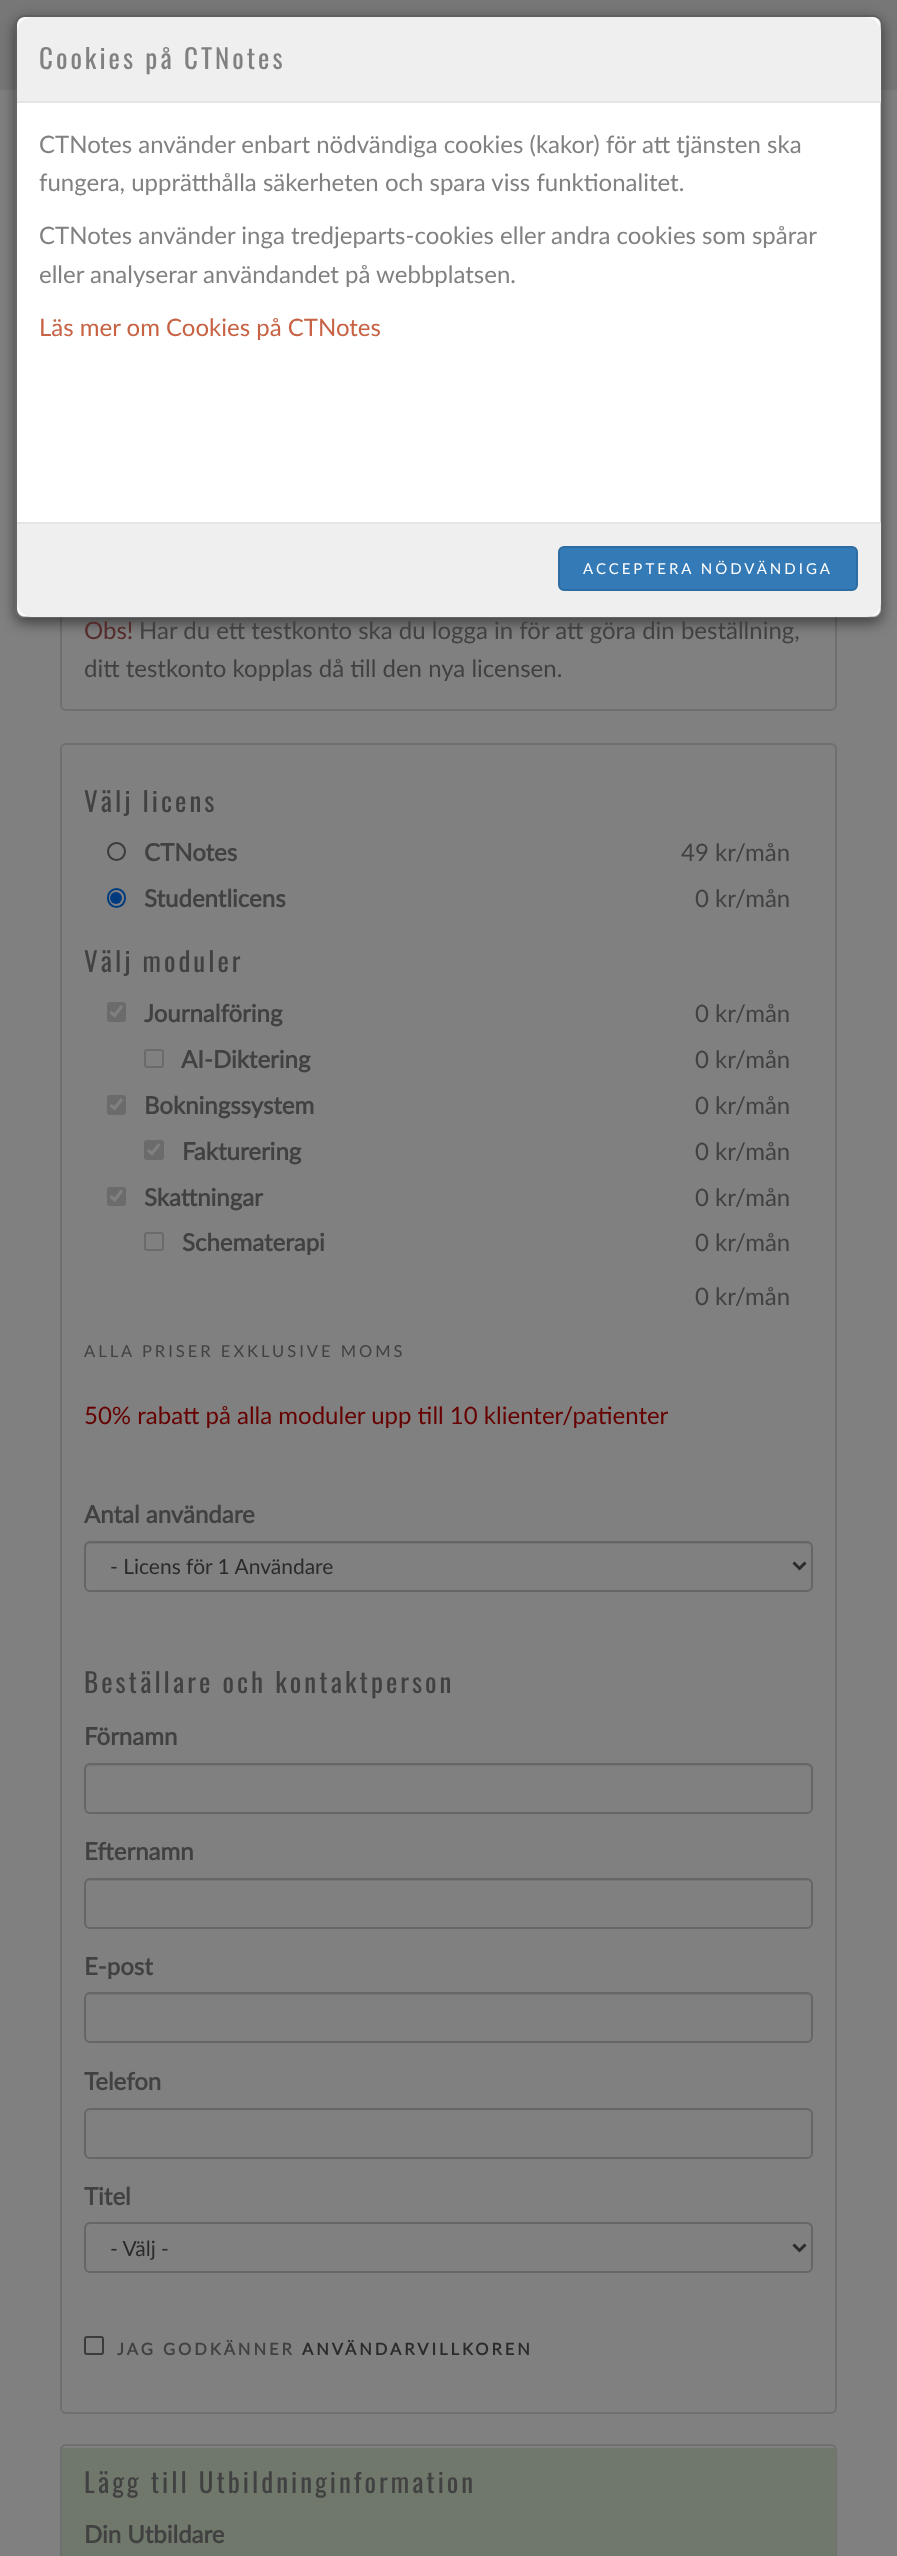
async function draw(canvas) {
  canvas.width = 897
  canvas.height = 2556
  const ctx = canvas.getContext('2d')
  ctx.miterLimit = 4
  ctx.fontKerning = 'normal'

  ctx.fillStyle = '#808080'
  ctx.fillRect(0, 0, 897, 2556)
  ctx.fillStyle = '#777'
  ctx.fillRect(0, 0, 897, 90)
  ctx.beginPath()
  ctx.roundRect(61, 106, 775, 604, 5)
  ctx.strokeStyle = '#6f6f6f'
  ctx.lineWidth = 2
  ctx.stroke()
  ctx.save()
  ctx.beginPath()
  ctx.moveTo(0, 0)
  ctx.lineTo(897, 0)
  ctx.lineTo(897, 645)
  ctx.lineTo(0, 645)
  ctx.closePath()
  ctx.moveTo(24, 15)
  ctx.lineTo(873, 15)
  ctx.bezierCurveTo(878, 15, 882, 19, 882, 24)
  ctx.lineTo(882, 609)
  ctx.bezierCurveTo(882, 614, 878, 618, 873, 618)
  ctx.lineTo(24, 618)
  ctx.bezierCurveTo(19, 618, 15, 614, 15, 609)
  ctx.lineTo(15, 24)
  ctx.bezierCurveTo(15, 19, 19, 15, 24, 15)
  ctx.closePath()
  ctx.clip('evenodd')
  ctx.fillStyle = '#00000080'
  ctx.filter = 'blur(7px)'
  ctx.beginPath()
  ctx.roundRect(15, 20, 867, 603, 9)
  ctx.fill()
  ctx.filter = 'none'
  ctx.restore()
  ctx.fillStyle = '#fff'
  ctx.beginPath()
  ctx.roundRect(17, 17, 864, 600, 8)
  ctx.fill()
  ctx.beginPath()
  ctx.roundRect(16, 16, 865, 601, 8)
  ctx.strokeStyle = '#00000033'
  ctx.stroke()
  ctx.fillStyle = '#efefef'
  ctx.beginPath()
  ctx.roundRect(17, 17, 864, 85, [15, 15, 0, 0])
  ctx.fill()
  ctx.fillStyle = '#e5e5e5'
  ctx.fillRect(17, 101, 864, 2)
  ctx.letterSpacing = '3px'
  ctx.font = '27px Oswald'
  ctx.fillStyle = '#818181'
  ctx.fillText('Cookies på CTNotes', 39, 69)
  ctx.letterSpacing = '0px'
  ctx.font = '24px Lato'
  ctx.fillText('CTNotes använder enbart nödvändiga cookies (kakor) för att tjänsten ska', 39, 153)
  ctx.fillText('fungera, upprätthålla säkerheten och spara viss funktionalitet.', 39, 191)
  ctx.fillText('CTNotes använder inga tredjeparts-cookies eller andra cookies som spårar', 39, 244)
  ctx.fillText('eller analyserar användandet på webbplatsen.', 39, 283)
  ctx.fillStyle = '#c76344'
  ctx.fillText('Läs mer om Cookies på CTNotes', 39, 336)
  ctx.fillStyle = '#efefef'
  ctx.beginPath()
  ctx.roundRect(17, 522, 864, 95, [0, 0, 15, 15])
  ctx.fill()
  ctx.fillStyle = '#e5e5e5'
  ctx.fillRect(17, 522, 864, 2)
  ctx.fillStyle = '#337ab7'
  ctx.beginPath()
  ctx.roundRect(559, 547, 298, 43, 5)
  ctx.fill()
  ctx.strokeStyle = '#2e6da4'
  ctx.stroke()
  ctx.letterSpacing = '3px'
  ctx.font = '15px Lato'
  ctx.fillStyle = '#fff'
  ctx.fillText('ACCEPTERA NÖDVÄNDIGA', 583, 574)
  ctx.letterSpacing = '0px'
  ctx.font = '24px Lato'
  ctx.fillStyle = '#552b2b'
  ctx.fillText('Obs!', 84, 639)
  ctx.fillStyle = '#414141'
  ctx.fillText('Har du ett testkonto ska du logga in för att göra din beställning,', 139, 639)
  ctx.fillText('ditt testkonto kopplas då till den nya licensen.', 84, 677)
  ctx.beginPath()
  ctx.roundRect(61, 744, 775, 1669, 5)
  ctx.strokeStyle = '#6f6f6f'
  ctx.stroke()
  ctx.letterSpacing = '3px'
  ctx.font = '27px Oswald'
  ctx.fillText('Välj licens', 84, 812)
  ctx.beginPath()
  ctx.arc(116.5, 851.5, 8.5, 0, 2 * Math.PI)
  ctx.strokeStyle = '#3b3b3b'
  ctx.stroke()
  ctx.letterSpacing = '0px'
  ctx.font = 'bold 24px Lato'
  ctx.fillText('CTNotes', 144, 861)
  ctx.font = '24px Lato'
  ctx.fillText('49 kr/mån', 681, 861)
  ctx.beginPath()
  ctx.roundRect(108, 889, 17, 18, 8.5)
  ctx.strokeStyle = '#003b80'
  ctx.stroke()
  ctx.fillStyle = '#003b80'
  ctx.beginPath()
  ctx.arc(116, 898, 6, 0, 2 * Math.PI)
  ctx.fill()
  ctx.font = 'bold 24px Lato'
  ctx.fillStyle = '#414141'
  ctx.fillText('Studentlicens', 144, 907)
  ctx.font = '24px Lato'
  ctx.fillText('0 kr/mån', 695, 907)
  ctx.letterSpacing = '3px'
  ctx.font = '27px Oswald'
  ctx.fillText('Välj moduler', 84, 972)
  ctx.fillStyle = '#6b6b6b'
  ctx.beginPath()
  ctx.roundRect(107, 1002, 19, 20, 3)
  ctx.fill()
  ctx.beginPath()
  ctx.moveTo(110.5, 1012)
  ctx.lineTo(114.5, 1015.5)
  ctx.lineTo(122, 1006)
  ctx.strokeStyle = '#808080'
  ctx.lineWidth = 3.1
  ctx.stroke()
  ctx.letterSpacing = '0px'
  ctx.font = 'bold 24px Lato'
  ctx.fillStyle = '#414141'
  ctx.fillText('Journalföring', 144, 1022)
  ctx.font = '24px Lato'
  ctx.fillText('0 kr/mån', 695, 1022)
  ctx.beginPath()
  ctx.roundRect(145, 1050, 18, 17, 2)
  ctx.strokeStyle = '#6b6b6b'
  ctx.lineWidth = 2
  ctx.stroke()
  ctx.font = 'bold 24px Lato'
  ctx.fillText('AI-Diktering', 181, 1068)
  ctx.font = '24px Lato'
  ctx.fillText('0 kr/mån', 695, 1068)
  ctx.fillStyle = '#6b6b6b'
  ctx.beginPath()
  ctx.roundRect(107, 1095, 19, 20, 3)
  ctx.fill()
  ctx.beginPath()
  ctx.moveTo(110.5, 1105)
  ctx.lineTo(114.5, 1108.5)
  ctx.lineTo(122, 1099)
  ctx.strokeStyle = '#808080'
  ctx.lineWidth = 3.1
  ctx.stroke()
  ctx.font = 'bold 24px Lato'
  ctx.fillStyle = '#414141'
  ctx.fillText('Bokningssystem', 144, 1114)
  ctx.font = '24px Lato'
  ctx.fillText('0 kr/mån', 695, 1114)
  ctx.fillStyle = '#6b6b6b'
  ctx.beginPath()
  ctx.roundRect(144, 1140, 20, 20, 3)
  ctx.fill()
  ctx.beginPath()
  ctx.moveTo(148, 1150)
  ctx.lineTo(152, 1153.5)
  ctx.lineTo(159.5, 1144)
  ctx.stroke()
  ctx.font = 'bold 24px Lato'
  ctx.fillStyle = '#414141'
  ctx.fillText('Fakturering', 182, 1160)
  ctx.font = '24px Lato'
  ctx.fillText('0 kr/mån', 695, 1160)
  ctx.fillStyle = '#6b6b6b'
  ctx.beginPath()
  ctx.roundRect(107, 1187, 19, 19, 3)
  ctx.fill()
  ctx.beginPath()
  ctx.moveTo(110.5, 1196)
  ctx.lineTo(114.5, 1200)
  ctx.lineTo(122, 1190.5)
  ctx.stroke()
  ctx.font = 'bold 24px Lato'
  ctx.fillStyle = '#414141'
  ctx.fillText('Skattningar', 144, 1206)
  ctx.font = '24px Lato'
  ctx.fillText('0 kr/mån', 695, 1206)
  ctx.beginPath()
  ctx.roundRect(145, 1233, 18, 17, 2)
  ctx.strokeStyle = '#6b6b6b'
  ctx.lineWidth = 2
  ctx.stroke()
  ctx.font = 'bold 24px Lato'
  ctx.fillText('Schematerapi', 182, 1251)
  ctx.font = '24px Lato'
  ctx.fillText('0 kr/mån', 695, 1251)
  ctx.fillText('0', 695, 1305)
  ctx.fillText('kr/mån', 715, 1305)
  ctx.letterSpacing = '3px'
  ctx.font = '16.5px Lato'
  ctx.fillText('ALLA PRISER EXKLUSIVE MOMS', 84, 1357)
  ctx.letterSpacing = '0px'
  ctx.font = '24px Lato'
  ctx.fillStyle = '#600'
  ctx.fillText('50% rabatt på alla moduler upp till 10 klienter/patienter', 84, 1424)
  ctx.font = 'bold 24px Lato'
  ctx.fillStyle = '#414141'
  ctx.fillText('Antal användare', 84, 1523)
  ctx.fillStyle = '#767676'
  ctx.beginPath()
  ctx.moveTo(90, 1544)
  ctx.lineTo(807, 1544)
  ctx.bezierCurveTo(809, 1544, 812, 1546, 812, 1548)
  ctx.bezierCurveTo(812, 1545, 810, 1542, 807, 1542)
  ctx.lineTo(91, 1542)
  ctx.bezierCurveTo(88, 1542, 86, 1545, 86, 1548)
  ctx.bezierCurveTo(86, 1546, 88, 1544, 90, 1544)
  ctx.closePath()
  ctx.fill()
  ctx.beginPath()
  ctx.roundRect(85, 1542, 727, 49, 5)
  ctx.strokeStyle = '#666'
  ctx.stroke()
  ctx.beginPath()
  ctx.moveTo(793.5, 1562.5)
  ctx.lineTo(799.5, 1568.5)
  ctx.lineTo(805.5, 1562.5)
  ctx.strokeStyle = '#2b2b2b'
  ctx.lineWidth = 3
  ctx.stroke()
  ctx.font = '21px Lato'
  ctx.fillStyle = '#2b2b2b'
  ctx.fillText('‐ Licens för 1 Användare', 110, 1574)
  ctx.letterSpacing = '3px'
  ctx.font = '27px Oswald'
  ctx.fillStyle = '#414141'
  ctx.fillText('Beställare och kontaktperson', 84, 1693)
  ctx.letterSpacing = '0px'
  ctx.font = 'bold 24px Lato'
  ctx.fillText('Förnamn', 84, 1745)
  ctx.fillStyle = '#767676'
  ctx.beginPath()
  ctx.moveTo(90, 1766)
  ctx.lineTo(807, 1766)
  ctx.bezierCurveTo(809, 1766, 812, 1768, 812, 1770)
  ctx.bezierCurveTo(812, 1767, 810, 1764, 807, 1764)
  ctx.lineTo(91, 1764)
  ctx.bezierCurveTo(88, 1764, 86, 1767, 86, 1770)
  ctx.bezierCurveTo(86, 1768, 88, 1766, 90, 1766)
  ctx.closePath()
  ctx.fill()
  ctx.beginPath()
  ctx.roundRect(85, 1764, 727, 49, 5)
  ctx.strokeStyle = '#666'
  ctx.lineWidth = 2
  ctx.stroke()
  ctx.fillStyle = '#414141'
  ctx.fillText('Efternamn', 84, 1860)
  ctx.fillStyle = '#767676'
  ctx.beginPath()
  ctx.moveTo(90, 1881)
  ctx.lineTo(807, 1881)
  ctx.bezierCurveTo(809, 1881, 812, 1883, 812, 1886)
  ctx.bezierCurveTo(812, 1883, 810, 1880, 807, 1880)
  ctx.lineTo(91, 1880)
  ctx.bezierCurveTo(88, 1880, 86, 1883, 86, 1886)
  ctx.bezierCurveTo(86, 1883, 88, 1881, 90, 1881)
  ctx.closePath()
  ctx.fill()
  ctx.beginPath()
  ctx.roundRect(85, 1879, 727, 49, 5)
  ctx.stroke()
  ctx.fillStyle = '#414141'
  ctx.fillText('E-post', 84, 1975)
  ctx.fillStyle = '#767676'
  ctx.beginPath()
  ctx.moveTo(90, 1995)
  ctx.lineTo(807, 1995)
  ctx.bezierCurveTo(809, 1995, 812, 1997, 812, 2000)
  ctx.bezierCurveTo(812, 1997, 810, 1994, 807, 1994)
  ctx.lineTo(91, 1994)
  ctx.bezierCurveTo(88, 1994, 86, 1997, 86, 2000)
  ctx.bezierCurveTo(86, 1997, 88, 1995, 90, 1995)
  ctx.closePath()
  ctx.fill()
  ctx.beginPath()
  ctx.roundRect(85, 1993, 727, 49, 5)
  ctx.stroke()
  ctx.fillStyle = '#414141'
  ctx.fillText('Telefon', 84, 2090)
  ctx.fillStyle = '#767676'
  ctx.beginPath()
  ctx.moveTo(90, 2110)
  ctx.lineTo(807, 2110)
  ctx.bezierCurveTo(809, 2110, 812, 2113, 812, 2115)
  ctx.bezierCurveTo(812, 2112, 810, 2109, 807, 2109)
  ctx.lineTo(91, 2109)
  ctx.bezierCurveTo(88, 2109, 86, 2112, 86, 2115)
  ctx.bezierCurveTo(86, 2113, 88, 2110, 90, 2110)
  ctx.closePath()
  ctx.fill()
  ctx.beginPath()
  ctx.roundRect(85, 2109, 727, 49, 5)
  ctx.stroke()
  ctx.fillStyle = '#414141'
  ctx.fillText('Titel', 84, 2205)
  ctx.fillStyle = '#767676'
  ctx.beginPath()
  ctx.moveTo(90, 2224)
  ctx.lineTo(807, 2224)
  ctx.bezierCurveTo(809, 2224, 812, 2227, 812, 2229)
  ctx.bezierCurveTo(812, 2226, 810, 2223, 807, 2223)
  ctx.lineTo(91, 2223)
  ctx.bezierCurveTo(88, 2223, 86, 2226, 86, 2229)
  ctx.bezierCurveTo(86, 2227, 88, 2224, 90, 2224)
  ctx.closePath()
  ctx.fill()
  ctx.beginPath()
  ctx.roundRect(85, 2223, 727, 49, 5)
  ctx.stroke()
  ctx.beginPath()
  ctx.moveTo(793.5, 2244.5)
  ctx.lineTo(799.5, 2250.5)
  ctx.lineTo(805.5, 2244.5)
  ctx.strokeStyle = '#2b2b2b'
  ctx.lineWidth = 3
  ctx.stroke()
  ctx.font = '21px Lato'
  ctx.fillStyle = '#2b2b2b'
  ctx.fillText('- Välj -', 110, 2256)
  ctx.beginPath()
  ctx.roundRect(85, 2337, 18, 17, 2)
  ctx.strokeStyle = '#3b3b3b'
  ctx.lineWidth = 2
  ctx.stroke()
  ctx.letterSpacing = '3px'
  ctx.font = 'bold 16.5px Lato'
  ctx.fillStyle = '#414141'
  ctx.fillText('JAG GODKÄNNER', 117, 2355)
  ctx.fillStyle = '#2b2b2b'
  ctx.fillText('ANVÄNDARVILLKOREN', 302, 2355)
  ctx.beginPath()
  ctx.roundRect(61, 2445, 775, 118, 5)
  ctx.strokeStyle = '#6f6f6f'
  ctx.stroke()
  ctx.fillStyle = '#70786c'
  ctx.fillRect(62, 2448, 774, 108)
  ctx.font = '27px Oswald'
  ctx.fillStyle = '#414141'
  ctx.fillText('Lägg till Utbildninginformation', 84, 2493)
  ctx.letterSpacing = '0px'
  ctx.font = 'bold 24px Lato'
  ctx.fillText('Din Utbildare', 84, 2543)
}

draw(document.querySelector('canvas'))
